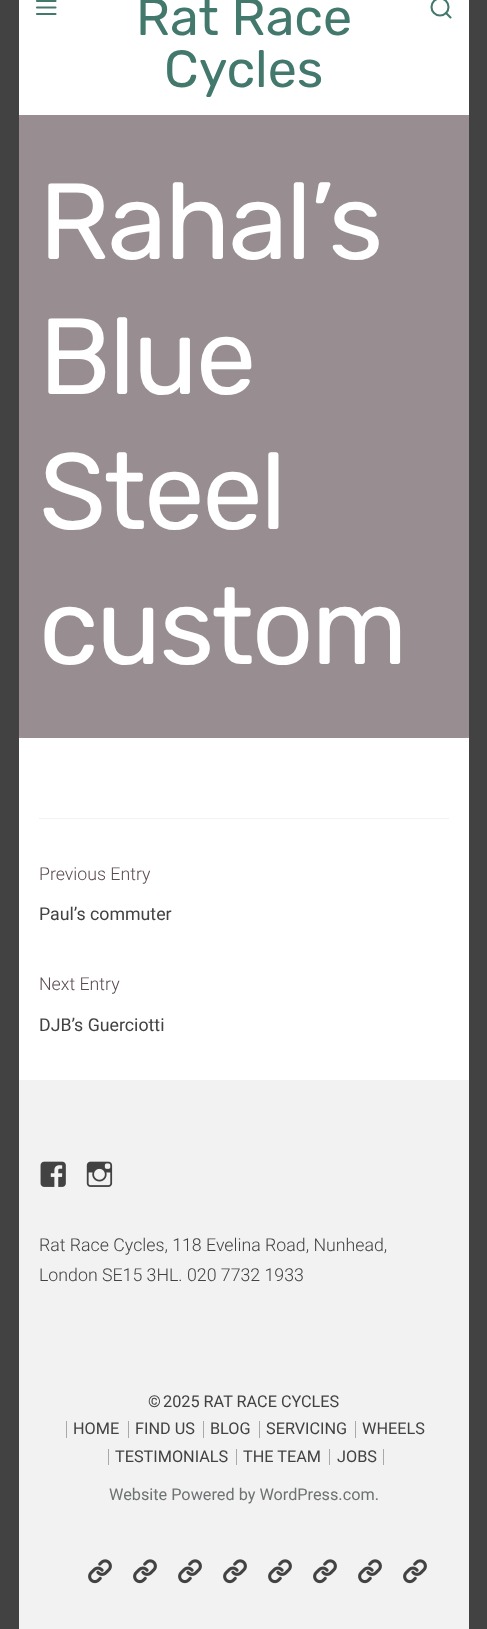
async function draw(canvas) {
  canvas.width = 487
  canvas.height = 1629
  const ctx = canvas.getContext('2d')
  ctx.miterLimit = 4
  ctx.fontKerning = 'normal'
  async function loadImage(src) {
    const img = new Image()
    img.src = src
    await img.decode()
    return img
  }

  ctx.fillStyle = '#424242'
  ctx.fillRect(0, 0, 487, 1629)
  ctx.fillStyle = '#fff'
  ctx.fillRect(19, 0, 450, 1080)
  ctx.fillStyle = '#9d9397'
  ctx.fillRect(19, 115, 450, 623)
  ctx.beginPath()
  ctx.moveTo(37, 7.5)
  ctx.lineTo(55.5, 7.5)
  ctx.moveTo(37, 1)
  ctx.lineTo(55.5, 1)
  ctx.moveTo(37, 14)
  ctx.lineTo(55.5, 14)
  ctx.strokeStyle = '#43786c'
  ctx.lineWidth = 2.1
  ctx.lineCap = 'round'
  ctx.lineJoin = 'round'
  ctx.stroke()
  ctx.beginPath()
  ctx.arc(440, 7, 8.5, 0, 2 * Math.PI)
  ctx.stroke()
  ctx.beginPath()
  ctx.moveTo(450.5, 17.5)
  ctx.lineTo(446, 13)
  ctx.stroke()
  ctx.font = '300 52px Rubik'
  ctx.fillStyle = '#43786c'
  ctx.fillText('Rat Race', 136, 35)
  ctx.fillText('Cycles', 164, 87)
  ctx.fillStyle = '#988e91'
  ctx.beginPath()
  ctx.roundRect(19, 115, 450, 623, 5)
  ctx.fill()
  ctx.letterSpacing = '-2.25px'
  ctx.font = '300 108px Rubik'
  ctx.fillStyle = '#fff'
  ctx.fillText('Rahal’s', 39, 259)
  ctx.fillText('Blue', 39, 394)
  ctx.fillText('Steel', 39, 529)
  ctx.fillText('custom', 39, 664)
  ctx.fillStyle = '#f2f2f2'
  ctx.fillRect(39, 818, 410, 1)
  ctx.letterSpacing = '0px'
  ctx.font = '300 17.75px Roboto'
  ctx.fillStyle = '#5c4b51'
  ctx.fillText('Previous Entry', 39, 880)
  ctx.font = '17.75px Roboto'
  ctx.fillStyle = '#424242'
  ctx.fillText('Paul’s commuter', 39, 920)
  ctx.font = '300 17.75px Roboto'
  ctx.fillStyle = '#5c4b51'
  ctx.fillText('Next Entry', 39, 990)
  ctx.font = '17.75px Roboto'
  ctx.fillStyle = '#424242'
  ctx.fillText('DJB’s Guerciotti', 39, 1031)
  ctx.fillStyle = '#f2f2f2'
  ctx.fillRect(19, 1080, 450, 549)
  ctx.drawImage(await loadImage('image0.png'), 40, 1161, 26, 26)
  ctx.drawImage(await loadImage('image1.png'), 86, 1161, 27, 26)
  ctx.font = '300 17.75px Roboto'
  ctx.fillStyle = '#424242'
  ctx.fillText('Rat Race Cycles, 118 Evelina Road, Nunhead,', 39, 1251)
  ctx.fillText('London SE15 3HL. 020 7732 1933', 39, 1281)
  ctx.font = '16.25px Roboto'
  ctx.fillText('©', 148, 1407)
  ctx.fillText('2025 RAT RACE CYCLES', 163, 1407)
  ctx.fillStyle = '#a9a9a9'
  ctx.fillRect(66, 1421, 1, 17)
  ctx.fillStyle = '#424242'
  ctx.fillText('HOME', 73, 1434)
  ctx.fillStyle = '#a9a9a9'
  ctx.fillRect(128, 1421, 1, 17)
  ctx.fillStyle = '#424242'
  ctx.fillText('FIND US', 135, 1434)
  ctx.fillStyle = '#a9a9a9'
  ctx.fillRect(203, 1421, 1, 17)
  ctx.fillStyle = '#424242'
  ctx.fillText('BLOG', 210, 1434)
  ctx.fillStyle = '#a9a9a9'
  ctx.fillRect(259, 1421, 1, 17)
  ctx.fillStyle = '#424242'
  ctx.fillText('SERVICING', 266, 1434)
  ctx.fillStyle = '#a9a9a9'
  ctx.fillRect(355, 1421, 1, 17)
  ctx.fillStyle = '#424242'
  ctx.fillText('WHEELS', 362, 1434)
  ctx.fillStyle = '#a9a9a9'
  ctx.fillRect(108, 1449, 1, 16)
  ctx.fillStyle = '#424242'
  ctx.fillText('TESTIMONIALS', 115, 1462)
  ctx.fillStyle = '#a9a9a9'
  ctx.fillRect(236, 1449, 1, 16)
  ctx.fillStyle = '#424242'
  ctx.fillText('THE TEAM', 243, 1462)
  ctx.fillStyle = '#a9a9a9'
  ctx.fillRect(383, 1449, 1, 16)
  ctx.fillRect(329, 1449, 1, 16)
  ctx.fillStyle = '#424242'
  ctx.fillText('JOBS', 337, 1462)
  ctx.fillStyle = '#6e7273'
  ctx.fillText('Website Powered by WordPress.com.', 109, 1500)
  ctx.drawImage(await loadImage('image2.png'), 88, 1559, 24, 25)
  ctx.drawImage(await loadImage('image2.png'), 133, 1559, 24, 25)
  ctx.drawImage(await loadImage('image2.png'), 178, 1559, 24, 25)
  ctx.drawImage(await loadImage('image2.png'), 223, 1559, 24, 25)
  ctx.drawImage(await loadImage('image2.png'), 268, 1559, 24, 25)
  ctx.drawImage(await loadImage('image2.png'), 313, 1559, 24, 25)
  ctx.drawImage(await loadImage('image2.png'), 358, 1559, 24, 25)
  ctx.drawImage(await loadImage('image2.png'), 403, 1559, 24, 25)
}

draw(document.querySelector('canvas'))
